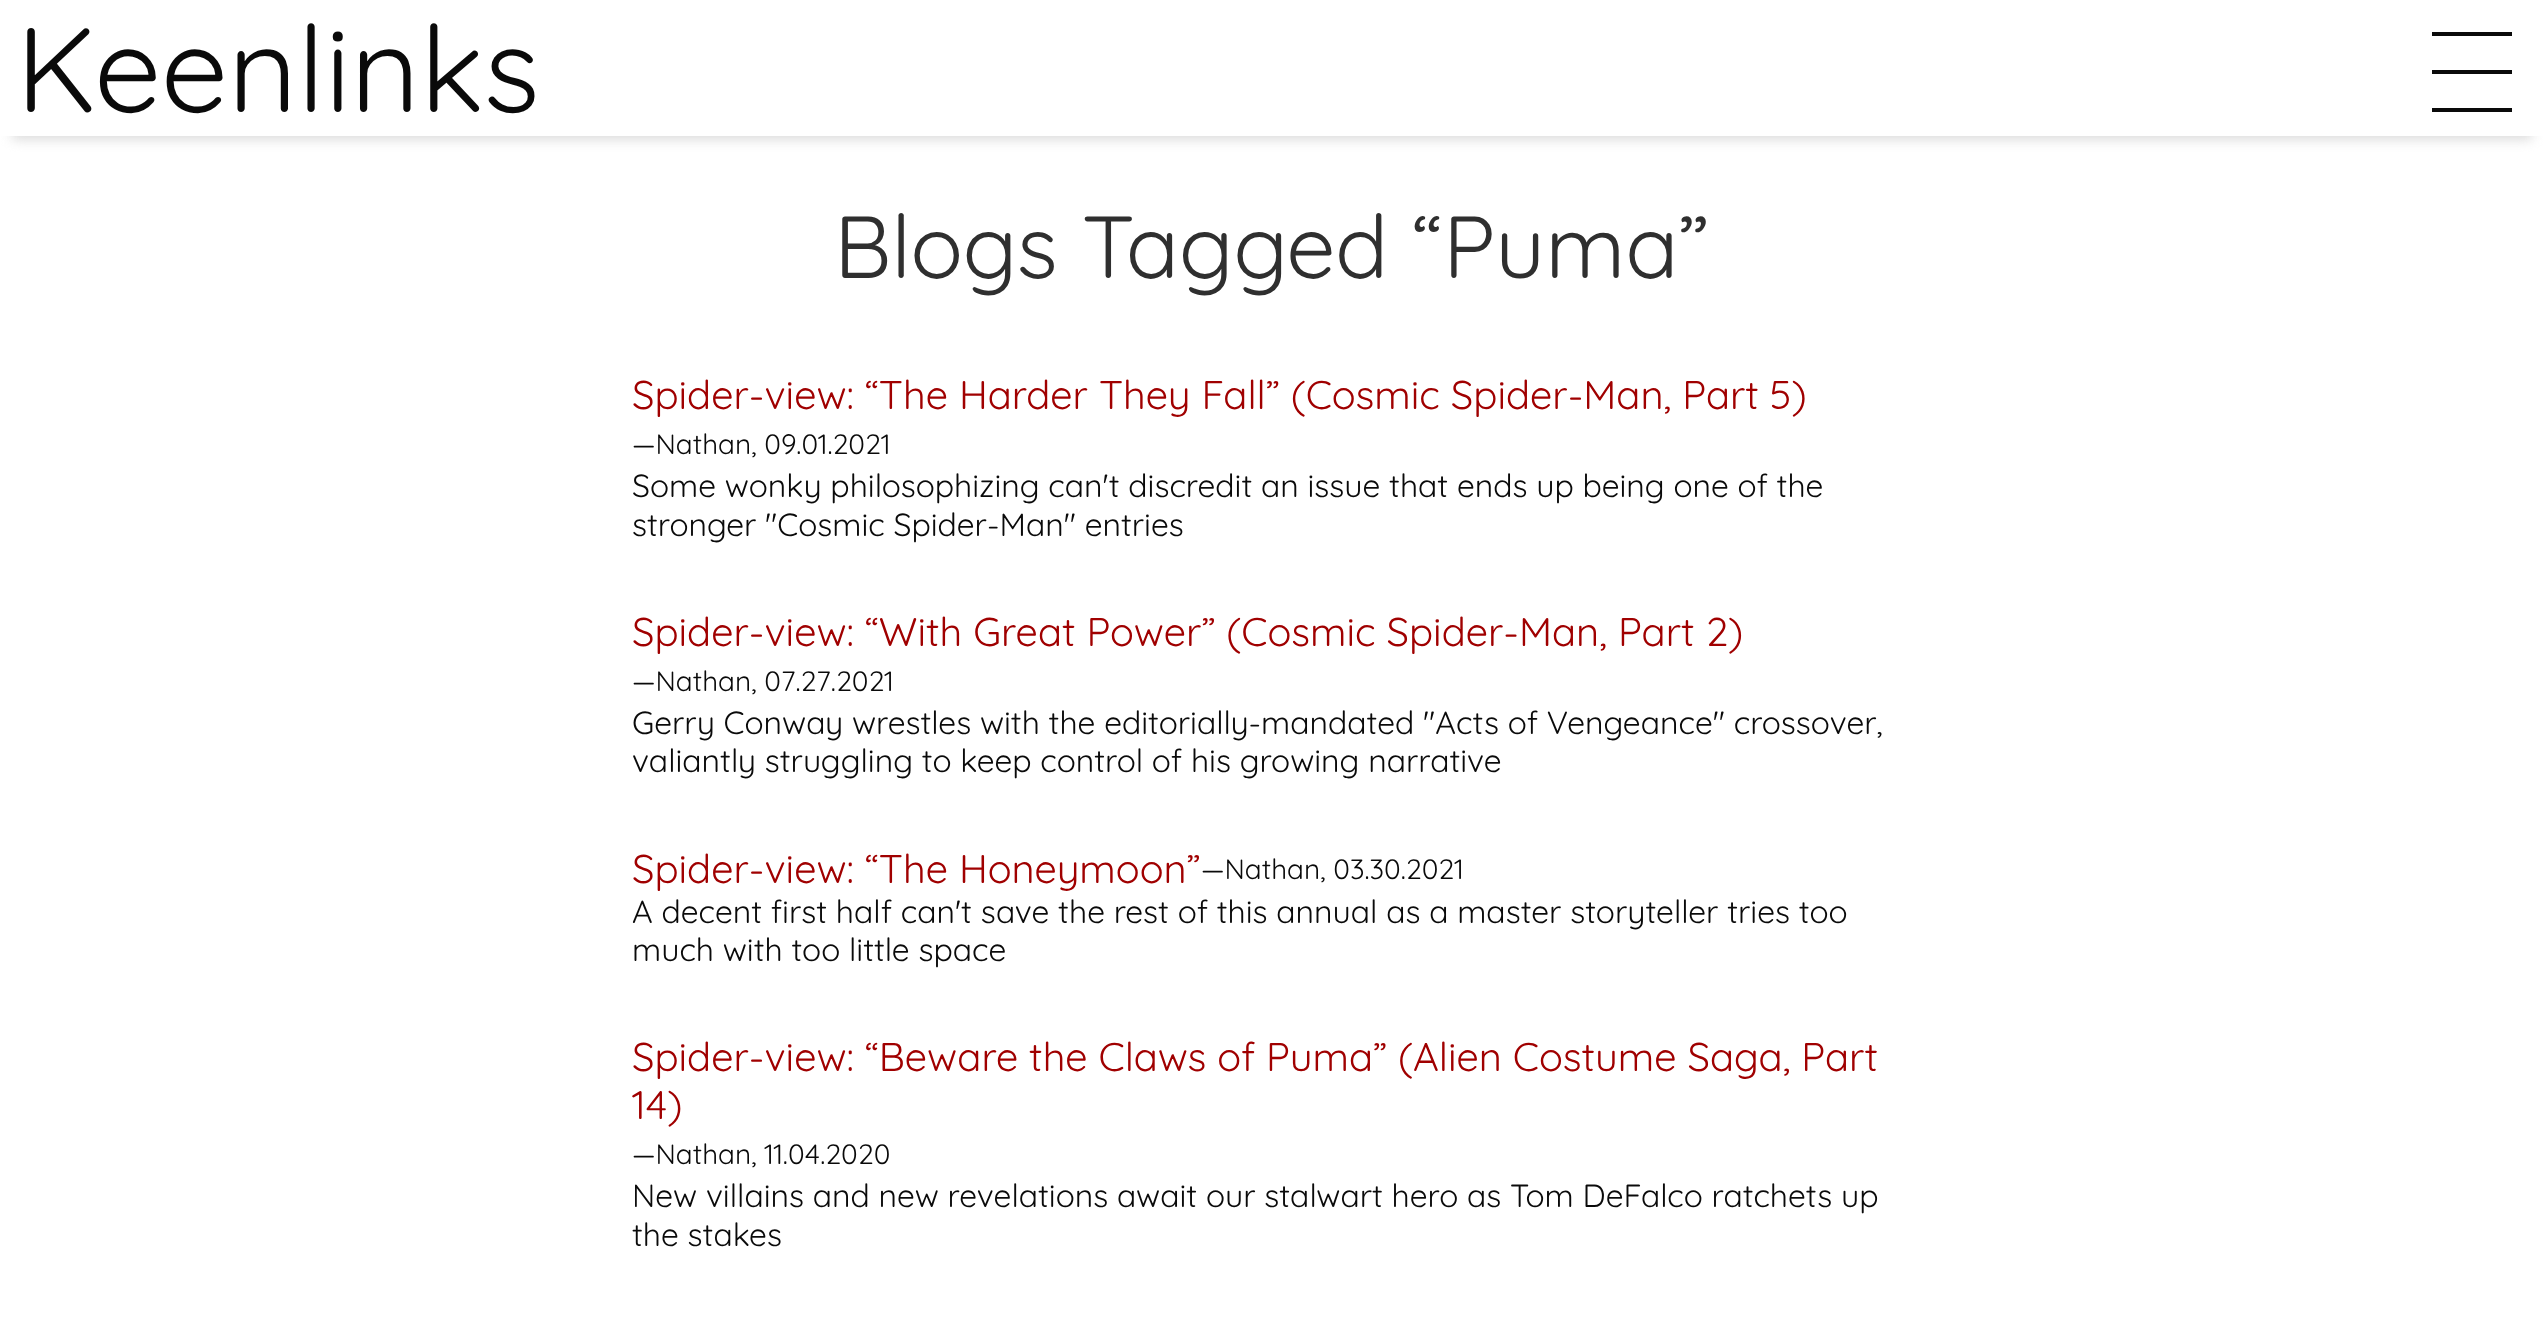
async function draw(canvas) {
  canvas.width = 2543
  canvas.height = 1337
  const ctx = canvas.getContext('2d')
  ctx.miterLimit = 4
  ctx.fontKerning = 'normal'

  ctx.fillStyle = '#fff'
  ctx.fillRect(0, 0, 2543, 1337)
  ctx.save()
  ctx.beginPath()
  ctx.rect(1, 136, 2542, 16)
  ctx.clip()
  ctx.fillStyle = '#ddd'
  ctx.filter = 'blur(6px)'
  ctx.beginPath()
  ctx.rect(12, 28, 2520, 112)
  ctx.fill()
  ctx.filter = 'none'
  ctx.restore()
  ctx.font = '300 120px Quicksand'
  ctx.fillStyle = '#0a0a0a'
  ctx.fillText('Keenlinks', 16, 112)
  ctx.fillRect(2432, 32, 80, 4)
  ctx.fillRect(2432, 70, 80, 4)
  ctx.fillRect(2432, 108, 80, 4)
  ctx.font = '300 88px Quicksand'
  ctx.fillStyle = '#2f2f2f'
  ctx.fillText('Blogs Tagged “Puma”', 834, 278)
  ctx.font = '300 40px Quicksand'
  ctx.fillStyle = '#a00000'
  ctx.fillText('Spider-view: “The Harder They Fall” (Cosmic Spider-Man, Part 5)', 632, 409)
  ctx.font = '300 28px Quicksand'
  ctx.fillStyle = '#0a0a0a'
  ctx.fillText('—Nathan, 09.01.2021', 632, 454)
  ctx.font = '300 32px Quicksand'
  ctx.fillText('Some wonky philosophizing can\'t discredit an issue that ends up being one of the', 632, 497)
  ctx.fillText('stronger "Cosmic Spider-Man" entries', 632, 536)
  ctx.font = '300 40px Quicksand'
  ctx.fillStyle = '#a00000'
  ctx.fillText('Spider-view: “With Great Power” (Cosmic Spider-Man, Part 2)', 632, 646)
  ctx.font = '300 28px Quicksand'
  ctx.fillStyle = '#0a0a0a'
  ctx.fillText('—Nathan, 07.27.2021', 632, 691)
  ctx.font = '300 32px Quicksand'
  ctx.fillText('Gerry Conway wrestles with the editorially-mandated "Acts of Vengeance" crossover,', 632, 734)
  ctx.fillText('valiantly struggling to keep control of his growing narrative', 632, 772)
  ctx.font = '300 40px Quicksand'
  ctx.fillStyle = '#a00000'
  ctx.fillText('Spider-view: “The Honeymoon”', 632, 883)
  ctx.font = '300 28px Quicksand'
  ctx.fillStyle = '#0a0a0a'
  ctx.fillText('—Nathan, 03.30.2021', 1201, 879)
  ctx.font = '300 32px Quicksand'
  ctx.fillText('A decent first half can\'t save the rest of this annual as a master storyteller tries too', 632, 923)
  ctx.fillText('much with too little space', 632, 961)
  ctx.font = '300 40px Quicksand'
  ctx.fillStyle = '#a00000'
  ctx.fillText('Spider-view: “Beware the Claws of Puma” (Alien Costume Saga, Part', 632, 1071)
  ctx.fillText('14)', 632, 1119)
  ctx.font = '300 28px Quicksand'
  ctx.fillStyle = '#0a0a0a'
  ctx.fillText('—Nathan, 11.04.2020', 632, 1164)
  ctx.font = '300 32px Quicksand'
  ctx.fillText('New villains and new revelations await our stalwart hero as Tom DeFalco ratchets up', 632, 1207)
  ctx.fillText('the stakes', 632, 1246)
}

draw(document.querySelector('canvas'))
